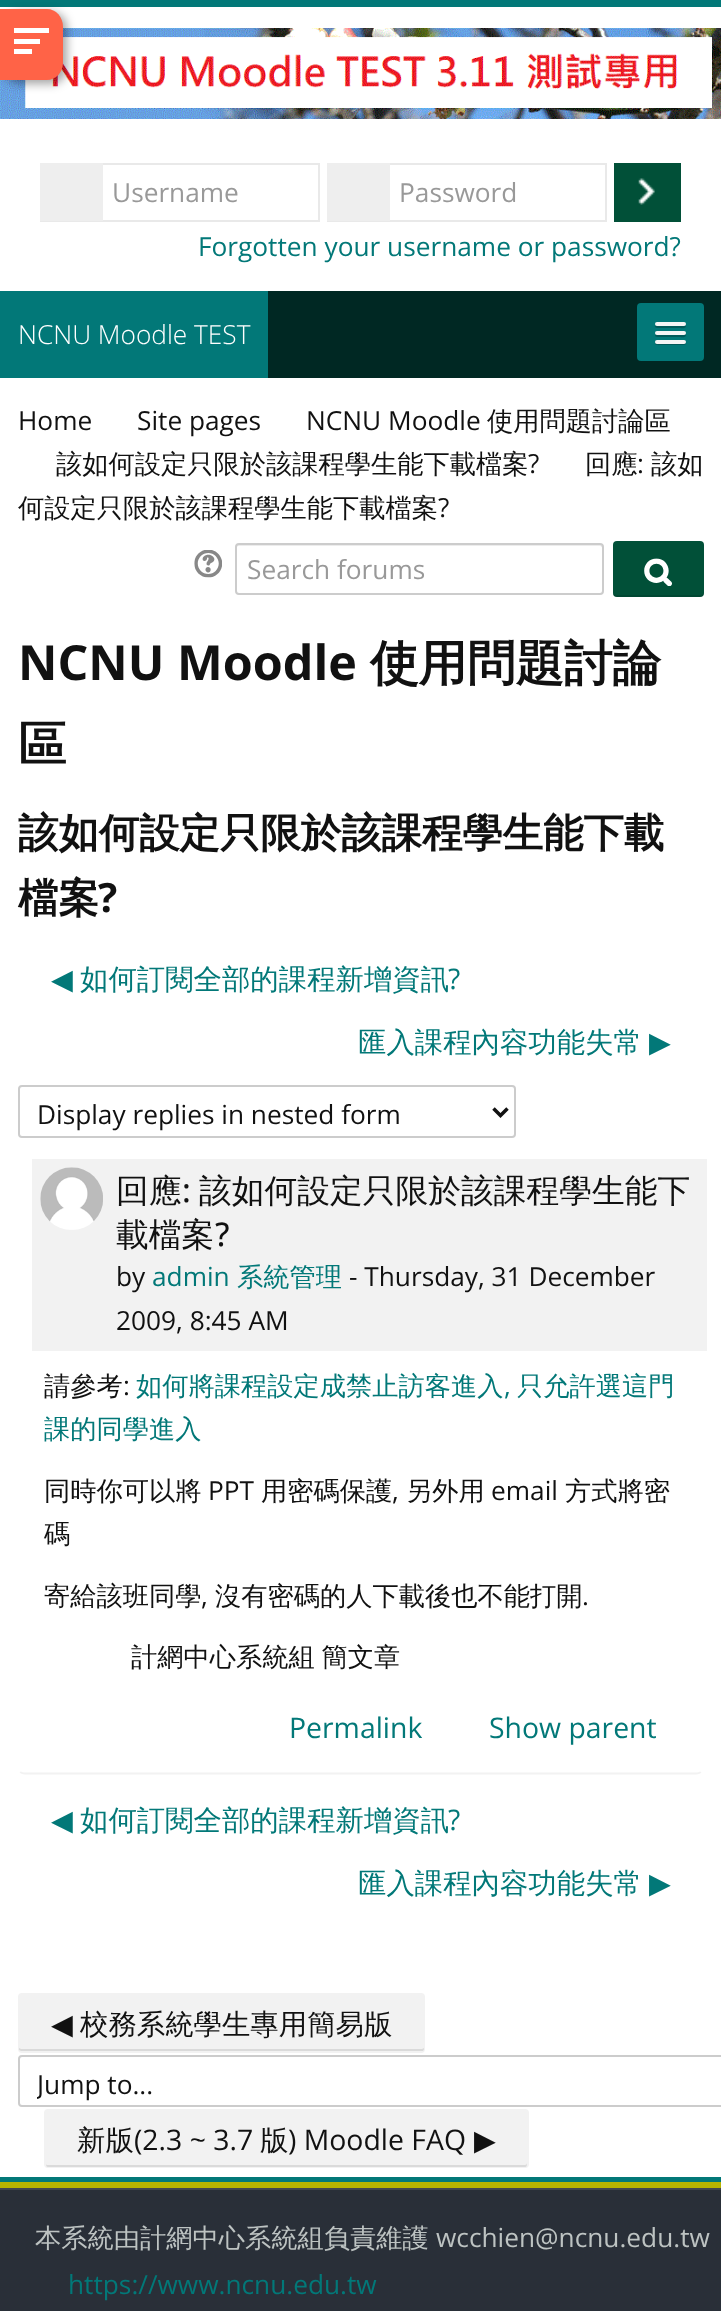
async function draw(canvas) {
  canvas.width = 721
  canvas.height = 2311
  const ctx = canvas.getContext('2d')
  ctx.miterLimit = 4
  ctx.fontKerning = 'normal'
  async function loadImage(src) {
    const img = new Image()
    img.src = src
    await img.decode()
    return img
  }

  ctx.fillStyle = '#fff'
  ctx.fillRect(0, 0, 721, 2311)
  ctx.fillStyle = '#027878'
  ctx.fillRect(0, 0, 721, 7)
  ctx.drawImage(await loadImage('image0.png'), 0, 28, 721, 91)
  ctx.fillStyle = '#00000059'
  ctx.filter = 'blur(5px)'
  ctx.beginPath()
  ctx.roundRect(4, 12, 63, 72, 16)
  ctx.fill()
  ctx.filter = 'none'
  ctx.fillStyle = '#ff6347'
  ctx.beginPath()
  ctx.moveTo(0, 9)
  ctx.lineTo(47, 9)
  ctx.bezierCurveTo(56, 9, 63, 17, 63, 27)
  ctx.lineTo(63, 63)
  ctx.bezierCurveTo(63, 72, 56, 80, 47, 80)
  ctx.lineTo(0, 80)
  ctx.closePath()
  ctx.fill()
  ctx.fillStyle = '#fff'
  ctx.fillRect(14, 28, 35, 5)
  ctx.fillRect(14, 39, 26, 5)
  ctx.fillRect(14, 49, 18, 5)
  ctx.strokeStyle = '#e9e9e9'
  ctx.lineWidth = 2
  ctx.strokeRect(41, 164, 278, 57)
  ctx.fillStyle = '#eee'
  ctx.fillRect(40, 163, 63, 58)
  ctx.font = '26.25px Open Sans'
  ctx.fillStyle = '#999'
  ctx.fillText('Username', 112, 202)
  ctx.strokeRect(328, 164, 278, 57)
  ctx.fillStyle = '#eee'
  ctx.fillRect(327, 163, 63, 58)
  ctx.fillStyle = '#999'
  ctx.fillText('Password', 399, 202)
  ctx.fillStyle = '#015038'
  ctx.fillRect(614, 163, 67, 59)
  ctx.drawImage(await loadImage('image1.png'), 638, 178, 17, 27)
  ctx.fillStyle = '#027878'
  ctx.fillText('Forgotten your username or password?', 198, 256)
  ctx.fillStyle = '#002823'
  ctx.fillRect(268, 291, 453, 87)
  ctx.fillStyle = '#027878'
  ctx.fillRect(0, 291, 268, 87)
  ctx.font = '300 26.25px Open Sans'
  ctx.fillStyle = '#fff'
  ctx.fillText('NCNU Moodle TEST', 18, 344)
  ctx.fillStyle = '#027878'
  ctx.beginPath()
  ctx.roundRect(637, 303, 67, 58, 4)
  ctx.fill()
  ctx.fillStyle = '#025a5a'
  ctx.beginPath()
  ctx.moveTo(655, 325)
  ctx.bezierCurveTo(653.5, 329, 660.5, 328, 661.5, 328)
  ctx.lineTo(679.5, 328)
  ctx.bezierCurveTo(680.5, 328, 685.5, 329, 686, 326.5)
  ctx.lineTo(685.5, 325)
  ctx.lineTo(684.5, 325.5)
  ctx.bezierCurveTo(682, 326, 656, 326, 655, 325)
  ctx.closePath()
  ctx.fill()
  ctx.fillStyle = '#f5f5f5'
  ctx.beginPath()
  ctx.roundRect(655, 322, 31, 4, 2)
  ctx.fill()
  ctx.fillStyle = '#025a5a'
  ctx.beginPath()
  ctx.moveTo(655.5, 334)
  ctx.bezierCurveTo(653, 338, 661, 337, 661.5, 337)
  ctx.lineTo(679.5, 337)
  ctx.bezierCurveTo(680.5, 337, 685.5, 338, 686, 335.5)
  ctx.bezierCurveTo(686, 335, 686, 334, 685.5, 333.5)
  ctx.lineTo(684.5, 334)
  ctx.bezierCurveTo(682, 334.5, 656, 334.5, 655.5, 334)
  ctx.closePath()
  ctx.fill()
  ctx.fillStyle = '#f5f5f5'
  ctx.beginPath()
  ctx.roundRect(655, 331, 31, 4, 2)
  ctx.fill()
  ctx.fillStyle = '#025a5a'
  ctx.beginPath()
  ctx.moveTo(655, 342.5)
  ctx.bezierCurveTo(654, 346, 660.5, 345, 661.5, 345)
  ctx.lineTo(679.5, 345)
  ctx.bezierCurveTo(680.5, 345, 687.5, 346, 686, 342)
  ctx.lineTo(684.5, 343)
  ctx.lineTo(656, 343)
  ctx.closePath()
  ctx.fill()
  ctx.fillStyle = '#f5f5f5'
  ctx.beginPath()
  ctx.roundRect(655, 340, 31, 4, 2)
  ctx.fill()
  ctx.font = '26.25px Open Sans'
  ctx.fillStyle = '#111'
  ctx.fillText('Home', 18, 430)
  ctx.fillText('Site pages', 137, 430)
  ctx.fillText('NCNU Moodle', 306, 430)
  ctx.font = '500 26.25px WenQuanYi Zen Hei'
  ctx.fillText('使用問題討論區', 487, 430)
  ctx.fillText('該如何設定只限於該課程學生能下載檔案', 56, 473)
  ctx.font = '26.25px Open Sans'
  ctx.fillText('?', 528, 473)
  ctx.font = '500 26.25px WenQuanYi Zen Hei'
  ctx.fillText('回應', 585, 473)
  ctx.font = '26.25px Open Sans'
  ctx.fillText(':', 637, 473)
  ctx.font = '500 26.25px WenQuanYi Zen Hei'
  ctx.fillText('該如', 651, 473)
  ctx.fillText('何設定只限於該課程學生能下載檔案', 18, 517)
  ctx.font = '26.25px Open Sans'
  ctx.fillText('?', 438, 517)
  ctx.drawImage(await loadImage('image2.png'), 194, 550, 28, 28)
  ctx.fillStyle = '#ececec'
  ctx.beginPath()
  ctx.moveTo(238, 546)
  ctx.lineTo(600, 546)
  ctx.bezierCurveTo(601, 546, 602, 547, 602, 548)
  ctx.lineTo(602, 546)
  ctx.bezierCurveTo(602, 545, 601, 544, 600, 544)
  ctx.lineTo(238, 544)
  ctx.bezierCurveTo(237, 544, 236, 545, 236, 546)
  ctx.lineTo(236, 548)
  ctx.bezierCurveTo(236, 547, 237, 546, 238, 546)
  ctx.closePath()
  ctx.fill()
  ctx.beginPath()
  ctx.roundRect(236, 544, 367, 50, 3)
  ctx.strokeStyle = '#ccc'
  ctx.stroke()
  ctx.fillStyle = '#999'
  ctx.fillText('Search forums', 247, 579)
  ctx.fillStyle = '#015038'
  ctx.beginPath()
  ctx.roundRect(613, 541, 91, 56, 4)
  ctx.fill()
  ctx.fillStyle = '#0000001a'
  ctx.beginPath()
  ctx.moveTo(613, 594)
  ctx.bezierCurveTo(613, 596, 615, 597, 617, 597)
  ctx.lineTo(700, 597)
  ctx.bezierCurveTo(702, 597, 704, 595, 704, 593)
  ctx.lineTo(704, 592)
  ctx.bezierCurveTo(704, 593, 702, 595, 700, 595)
  ctx.lineTo(616, 595)
  ctx.bezierCurveTo(615, 595, 614, 594, 613, 594)
  ctx.closePath()
  ctx.fill()
  ctx.drawImage(await loadImage('image3.png'), 644, 558, 28, 28)
  ctx.font = 'bold 48.5px Open Sans'
  ctx.fillStyle = '#111'
  ctx.fillText('NCNU Moodle', 18, 680)
  ctx.font = 'bold 48.5px WenQuanYi Zen Hei'
  ctx.fillText('使用問題討論', 370, 680)
  ctx.fillText('區', 18, 761)
  ctx.font = 'bold 40.4px WenQuanYi Zen Hei'
  ctx.fillText('該如何設定只限於該課程學生能下載', 18, 847)
  ctx.fillText('檔案', 18, 912)
  ctx.font = 'bold 40.4px Open Sans'
  ctx.fillText('?', 98, 912)
  ctx.font = '28.4px DejaVu Sans'
  ctx.fillStyle = '#027878'
  ctx.fillText('◀︎', 51, 989)
  ctx.font = '500 28.4px WenQuanYi Zen Hei'
  ctx.fillText('如何訂閱全部的課程新增資訊', 80, 989)
  ctx.font = '28.4px Open Sans'
  ctx.fillText('?', 448, 989)
  ctx.font = '500 28.4px WenQuanYi Zen Hei'
  ctx.fillText('匯入課程內容功能失常', 358, 1052)
  ctx.font = '28.4px DejaVu Sans'
  ctx.fillText('▶︎', 649, 1052)
  ctx.beginPath()
  ctx.roundRect(19, 1086, 496, 51, 3)
  ctx.stroke()
  ctx.beginPath()
  ctx.moveTo(493.5, 1108.5)
  ctx.lineTo(500.5, 1115.5)
  ctx.lineTo(507.5, 1108.5)
  ctx.strokeStyle = '#111'
  ctx.lineWidth = 3.5
  ctx.stroke()
  ctx.font = '26.25px Open Sans'
  ctx.fillStyle = '#111'
  ctx.fillText('Display replies in nested form', 37, 1124)
  ctx.beginPath()
  ctx.moveTo(701, 1772)
  ctx.bezierCurveTo(699.5, 1773, 698, 1773.5, 696.5, 1773.5)
  ctx.lineTo(24.5, 1773.5)
  ctx.bezierCurveTo(23, 1773.5, 21.5, 1773, 20, 1772)
  ctx.strokeStyle = '#f2f2f2'
  ctx.lineWidth = 1.8
  ctx.stroke()
  ctx.beginPath()
  ctx.moveTo(20, 1772)
  ctx.bezierCurveTo(19, 1770.5, 18.5, 1769, 18.5, 1767.5)
  ctx.lineTo(18.5, 1151.5)
  ctx.bezierCurveTo(18.5, 1150, 19, 1148.5, 20, 1147)
  ctx.bezierCurveTo(21.5, 1146, 23, 1145.5, 24.5, 1145.5)
  ctx.lineTo(696.5, 1145.5)
  ctx.bezierCurveTo(698, 1145.5, 699.5, 1146, 701, 1147)
  ctx.bezierCurveTo(702, 1148.5, 702.5, 1150, 702.5, 1151.5)
  ctx.lineTo(702.5, 1767.5)
  ctx.bezierCurveTo(702.5, 1769, 702, 1770.5, 701, 1772)
  ctx.strokeStyle = '#fff'
  ctx.stroke()
  ctx.fillStyle = '#f2f2f2'
  ctx.fillRect(32, 1159, 675, 192)
  ctx.drawImage(await loadImage('image4.png'), 40, 1167, 63, 63)
  ctx.font = '500 32.75px WenQuanYi Zen Hei'
  ctx.fillStyle = '#111'
  ctx.fillText('回應', 116, 1202)
  ctx.font = '500 32.75px Open Sans'
  ctx.fillText(':', 182, 1202)
  ctx.font = '500 32.75px WenQuanYi Zen Hei'
  ctx.fillText('該如何設定只限於該課程學生能下', 199, 1202)
  ctx.fillText('載檔案', 116, 1246)
  ctx.font = '500 32.75px Open Sans'
  ctx.fillText('?', 215, 1246)
  ctx.font = '26.25px Open Sans'
  ctx.fillText('by', 116, 1286)
  ctx.fillStyle = '#027878'
  ctx.fillText('admin', 152, 1286)
  ctx.font = '500 26.25px WenQuanYi Zen Hei'
  ctx.fillText('系統管理', 237, 1286)
  ctx.font = '26.25px Open Sans'
  ctx.fillStyle = '#111'
  ctx.fillText('- Thursday, 31 December', 349, 1286)
  ctx.fillText('2009, 8:45 AM', 116, 1330)
  ctx.font = '500 26.25px WenQuanYi Zen Hei'
  ctx.fillText('請參考', 44, 1395)
  ctx.font = '26.25px Open Sans'
  ctx.fillText(':', 123, 1395)
  ctx.font = '500 26.25px WenQuanYi Zen Hei'
  ctx.fillStyle = '#027878'
  ctx.fillText('如何將課程設定成禁止訪客進入', 136, 1395)
  ctx.font = '26.25px Open Sans'
  ctx.fillText(',', 504, 1395)
  ctx.font = '500 26.25px WenQuanYi Zen Hei'
  ctx.fillText('只允許選這門', 517, 1395)
  ctx.fillText('課的同學進入', 44, 1438)
  ctx.fillStyle = '#111'
  ctx.fillText('同時你可以將', 44, 1500)
  ctx.font = '26.25px Open Sans'
  ctx.fillText('PPT', 208, 1500)
  ctx.font = '500 26.25px WenQuanYi Zen Hei'
  ctx.fillText('用密碼保護', 261, 1500)
  ctx.font = '26.25px Open Sans'
  ctx.fillText(',', 392, 1500)
  ctx.font = '500 26.25px WenQuanYi Zen Hei'
  ctx.fillText('另外用', 406, 1500)
  ctx.font = '26.25px Open Sans'
  ctx.fillText('email', 491, 1500)
  ctx.font = '500 26.25px WenQuanYi Zen Hei'
  ctx.fillText('方式將密', 565, 1500)
  ctx.fillText('碼', 44, 1543)
  ctx.fillText('寄給該班同學', 44, 1605)
  ctx.font = '26.25px Open Sans'
  ctx.fillText(',', 201, 1605)
  ctx.font = '500 26.25px WenQuanYi Zen Hei'
  ctx.fillText('沒有密碼的人下載後也不能打開', 215, 1605)
  ctx.font = '26.25px Open Sans'
  ctx.fillText('.', 582, 1605)
  ctx.wordSpacing = '-1px'
  ctx.font = '500 26.25px WenQuanYi Zen Hei'
  ctx.fillText('計網中心系統組 簡文章', 131, 1666)
  ctx.wordSpacing = '0px'
  ctx.font = '28.4px Open Sans'
  ctx.fillStyle = '#027878'
  ctx.fillText('Permalink', 289, 1738)
  ctx.fillText('Show parent', 489, 1738)
  ctx.font = '28.4px DejaVu Sans'
  ctx.fillText('◀︎', 51, 1830)
  ctx.font = '500 28.4px WenQuanYi Zen Hei'
  ctx.fillText('如何訂閱全部的課程新增資訊', 80, 1830)
  ctx.font = '28.4px Open Sans'
  ctx.fillText('?', 448, 1830)
  ctx.font = '500 28.4px WenQuanYi Zen Hei'
  ctx.fillText('匯入課程內容功能失常', 358, 1893)
  ctx.font = '28.4px DejaVu Sans'
  ctx.fillText('▶︎', 649, 1893)
  ctx.fillStyle = '#f2f2f2'
  ctx.beginPath()
  ctx.roundRect(18, 1993, 407, 60, 4)
  ctx.fill()
  ctx.fillStyle = '#dadada'
  ctx.beginPath()
  ctx.moveTo(19, 2048)
  ctx.lineTo(19, 2050)
  ctx.lineTo(21, 2051)
  ctx.lineTo(423, 2051)
  ctx.bezierCurveTo(424, 2050, 424, 2049, 424, 2048)
  ctx.lineTo(422, 2049)
  ctx.lineTo(21, 2049)
  ctx.closePath()
  ctx.fill()
  ctx.fillStyle = '#111'
  ctx.fillText('◀︎', 51, 2034)
  ctx.font = '500 28.4px WenQuanYi Zen Hei'
  ctx.fillText('校務系統學生專用簡易版', 80, 2034)
  ctx.beginPath()
  ctx.roundRect(19, 2056, 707, 50, 3)
  ctx.strokeStyle = '#ccc'
  ctx.lineWidth = 2
  ctx.stroke()
  ctx.save()
  ctx.beginPath()
  ctx.rect(37, 2063, 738, 39)
  ctx.clip()
  ctx.font = '26.25px Open Sans'
  ctx.fillText('Jump to...', 37, 2094)
  ctx.restore()
  ctx.fillStyle = '#f2f2f2'
  ctx.beginPath()
  ctx.roundRect(44, 2109, 485, 59, 4)
  ctx.fill()
  ctx.fillStyle = '#dadada'
  ctx.beginPath()
  ctx.moveTo(46, 2163)
  ctx.bezierCurveTo(46, 2165, 46, 2167, 48, 2167)
  ctx.lineTo(525, 2167)
  ctx.bezierCurveTo(527, 2167, 527, 2165, 527, 2163)
  ctx.bezierCurveTo(527, 2164, 526, 2165, 525, 2165)
  ctx.lineTo(47, 2165)
  ctx.bezierCurveTo(46, 2165, 46, 2164, 46, 2163)
  ctx.closePath()
  ctx.fill()
  ctx.fillStyle = '#111'
  ctx.fillText('新版', 77, 2150)
  ctx.font = '28.4px Open Sans'
  ctx.fillText('(2.3 ~ 3.7', 134, 2150)
  ctx.font = '500 28.4px WenQuanYi Zen Hei'
  ctx.fillText('版', 260, 2150)
  ctx.font = '28.4px Open Sans'
  ctx.fillText(') Moodle FAQ', 288, 2150)
  ctx.font = '28.4px DejaVu Sans'
  ctx.fillText('▶︎', 474, 2150)
  ctx.fillStyle = '#b7b400'
  ctx.fillRect(0, 2182, 721, 6)
  ctx.fillStyle = '#027878'
  ctx.fillRect(0, 2177, 721, 5)
  ctx.fillStyle = '#292f38'
  ctx.fillRect(0, 2190, 721, 121)
  ctx.fillStyle = '#41464e'
  ctx.fillRect(0, 2188, 721, 2)
  ctx.font = '500 26.25px WenQuanYi Zen Hei'
  ctx.fillStyle = '#bdc3c2'
  ctx.fillText('本系統由計網中心系統組負責維護', 35, 2247)
  ctx.font = '26.25px Open Sans'
  ctx.fillText('wcchien@ncnu.edu.tw', 436, 2247)
  ctx.fillStyle = '#027878'
  ctx.fillText('https://www.ncnu.edu.tw', 68, 2294)
}

draw(document.querySelector('canvas'))
